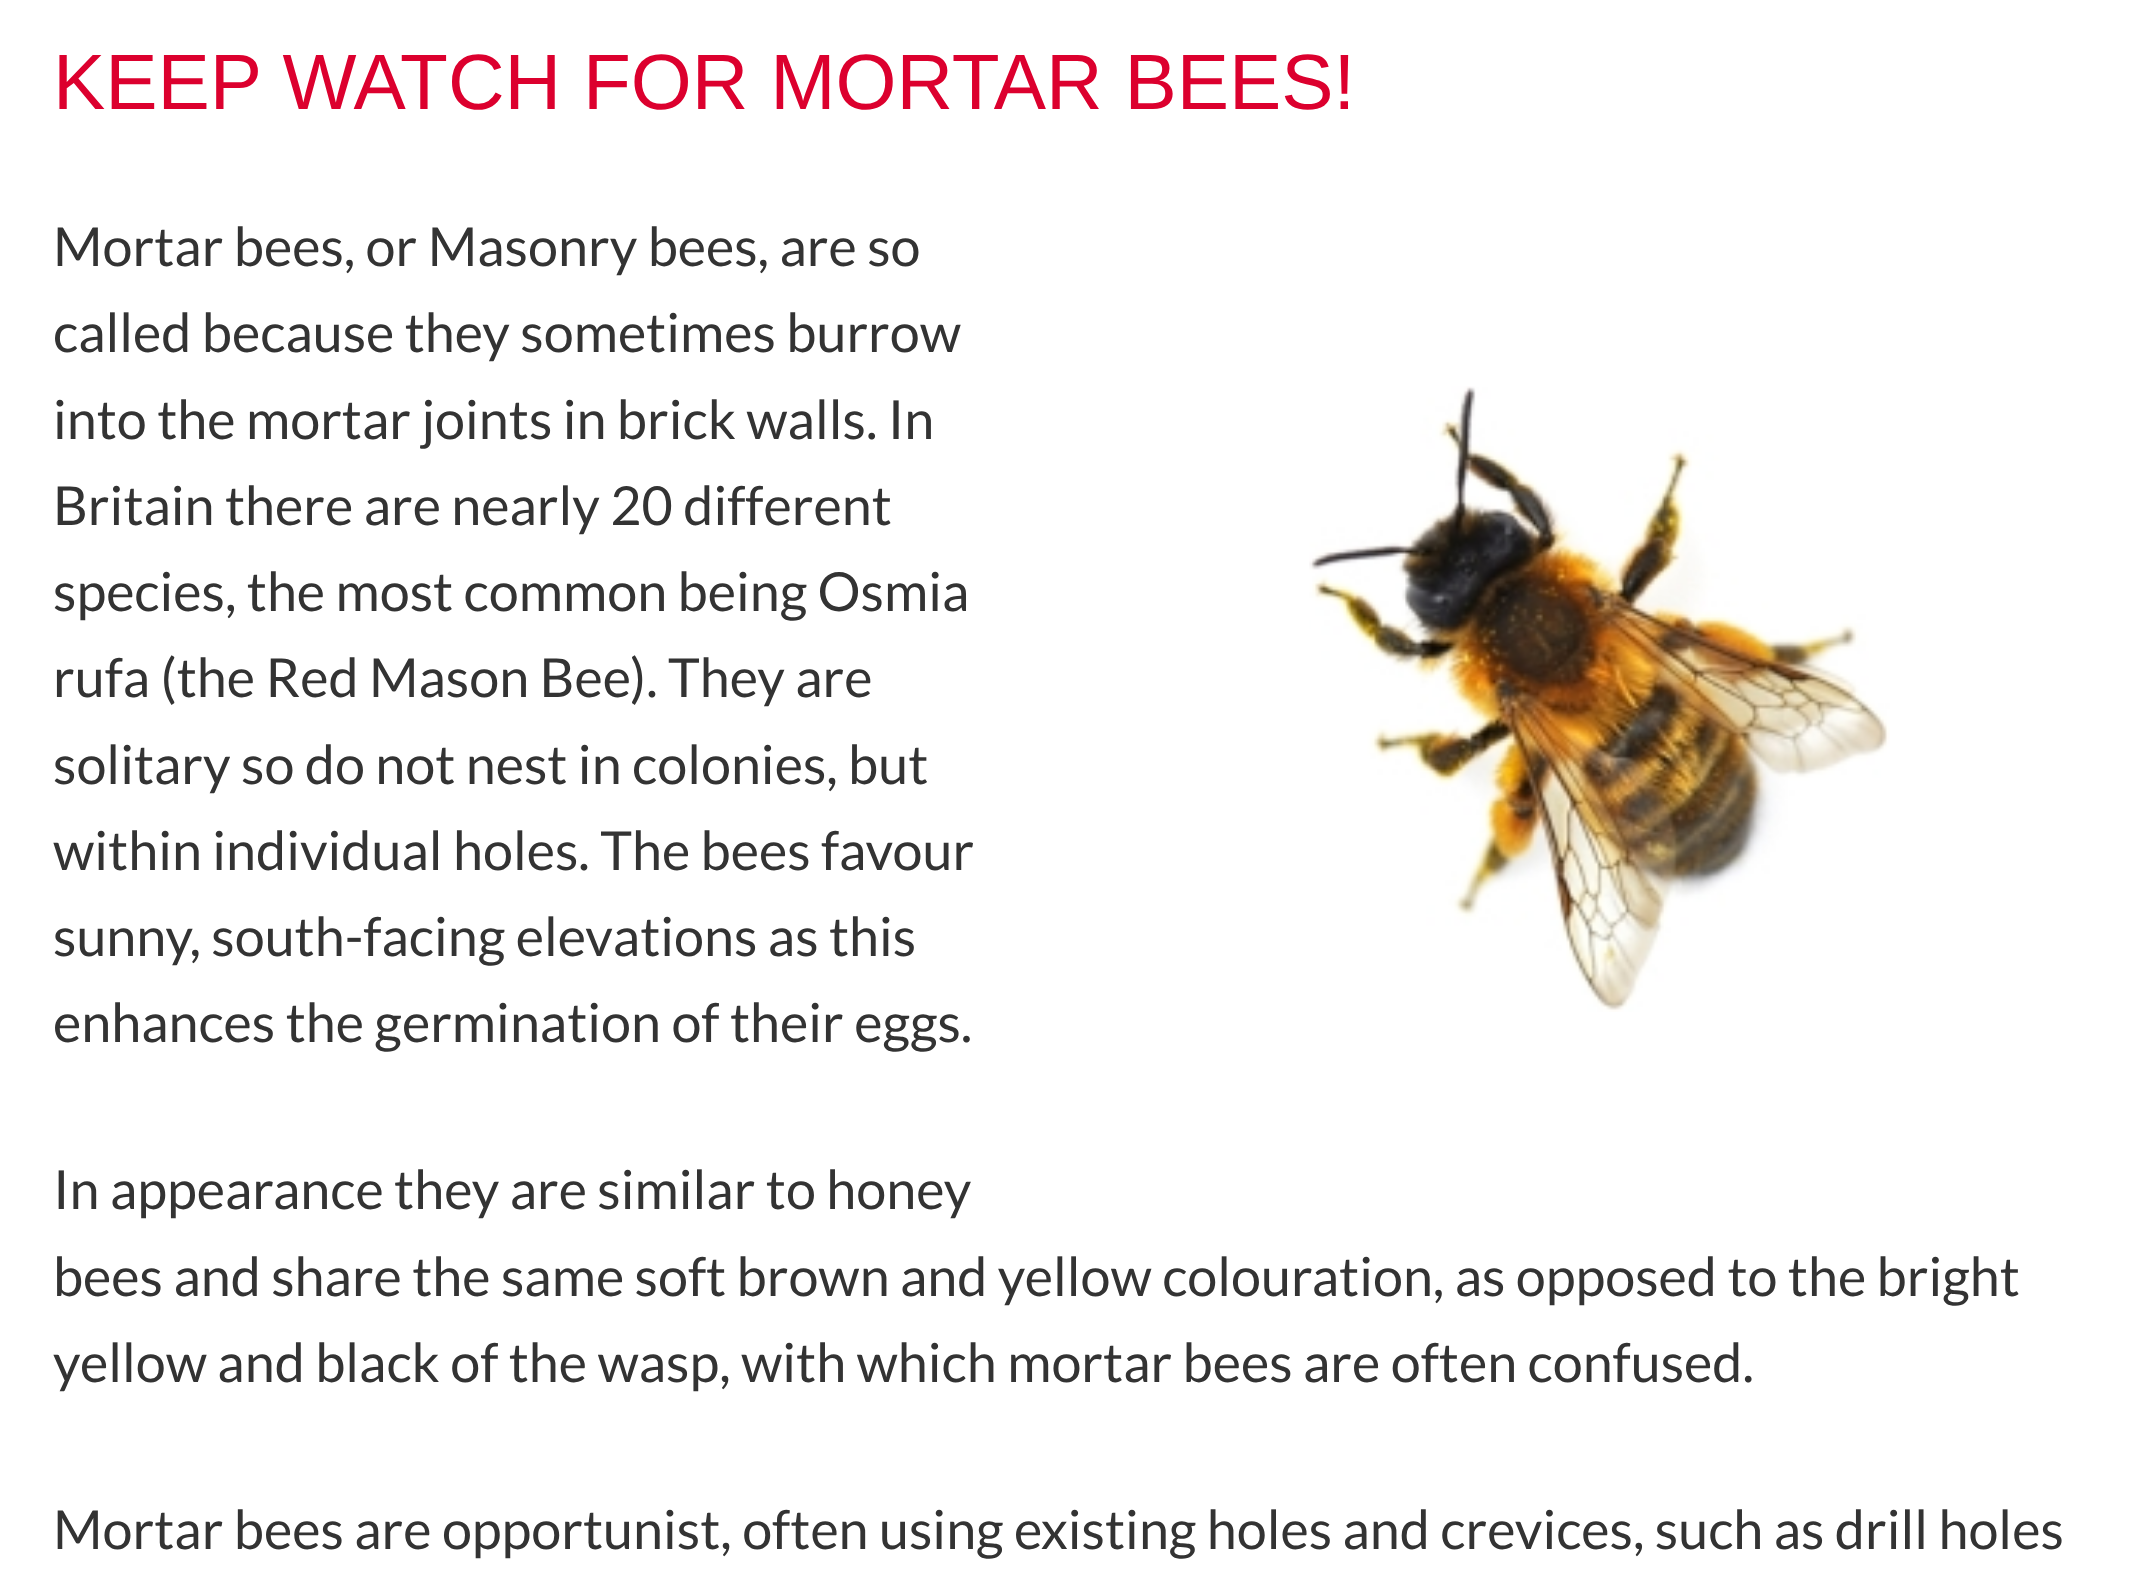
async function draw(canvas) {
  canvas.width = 2147
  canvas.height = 1595
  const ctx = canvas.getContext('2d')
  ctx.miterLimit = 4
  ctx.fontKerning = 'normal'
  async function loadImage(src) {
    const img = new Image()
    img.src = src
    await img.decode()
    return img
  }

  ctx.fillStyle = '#fff'
  ctx.fillRect(0, 0, 2147, 1595)
  ctx.font = '78.4px Liberation Sans'
  ctx.fillStyle = '#dc002e'
  ctx.fillText('KEEP WATCH FOR MORTAR BEES!', 53, 109)
  ctx.font = '53.9px Lato'
  ctx.fillStyle = '#333'
  ctx.fillText('Mortar bees, or Masonry bees, are so', 53, 266)
  ctx.fillText('called because they sometimes burrow', 53, 352)
  ctx.fillText('into the mortar joints in brick walls. In', 53, 439)
  ctx.fillText('Britain there are nearly 20 different', 53, 525)
  ctx.fillText('species, the most common being Osmia', 53, 611)
  ctx.fillText('rufa (the Red Mason Bee). They are', 53, 697)
  ctx.fillText('solitary so do not nest in colonies, but', 53, 784)
  ctx.fillText('within individual holes. The bees favour', 53, 870)
  ctx.fillText('sunny, south-facing elevations as this', 53, 956)
  ctx.fillText('enhances the germination of their eggs.', 53, 1042)
  ctx.fillText('In appearance they are similar to honey', 53, 1209)
  ctx.fillText('bees and share the same soft brown and yellow colouration, as opposed to the bright', 53, 1296)
  ctx.fillText('yellow and black of the wasp, with which mortar bees are often confused.', 53, 1382)
  ctx.fillText('Mortar bees are opportunist, often using existing holes and crevices, such as drill holes', 53, 1549)
  ctx.drawImage(await loadImage('image0.png'), 1309, 386, 581, 626)
}

draw(document.querySelector('canvas'))
